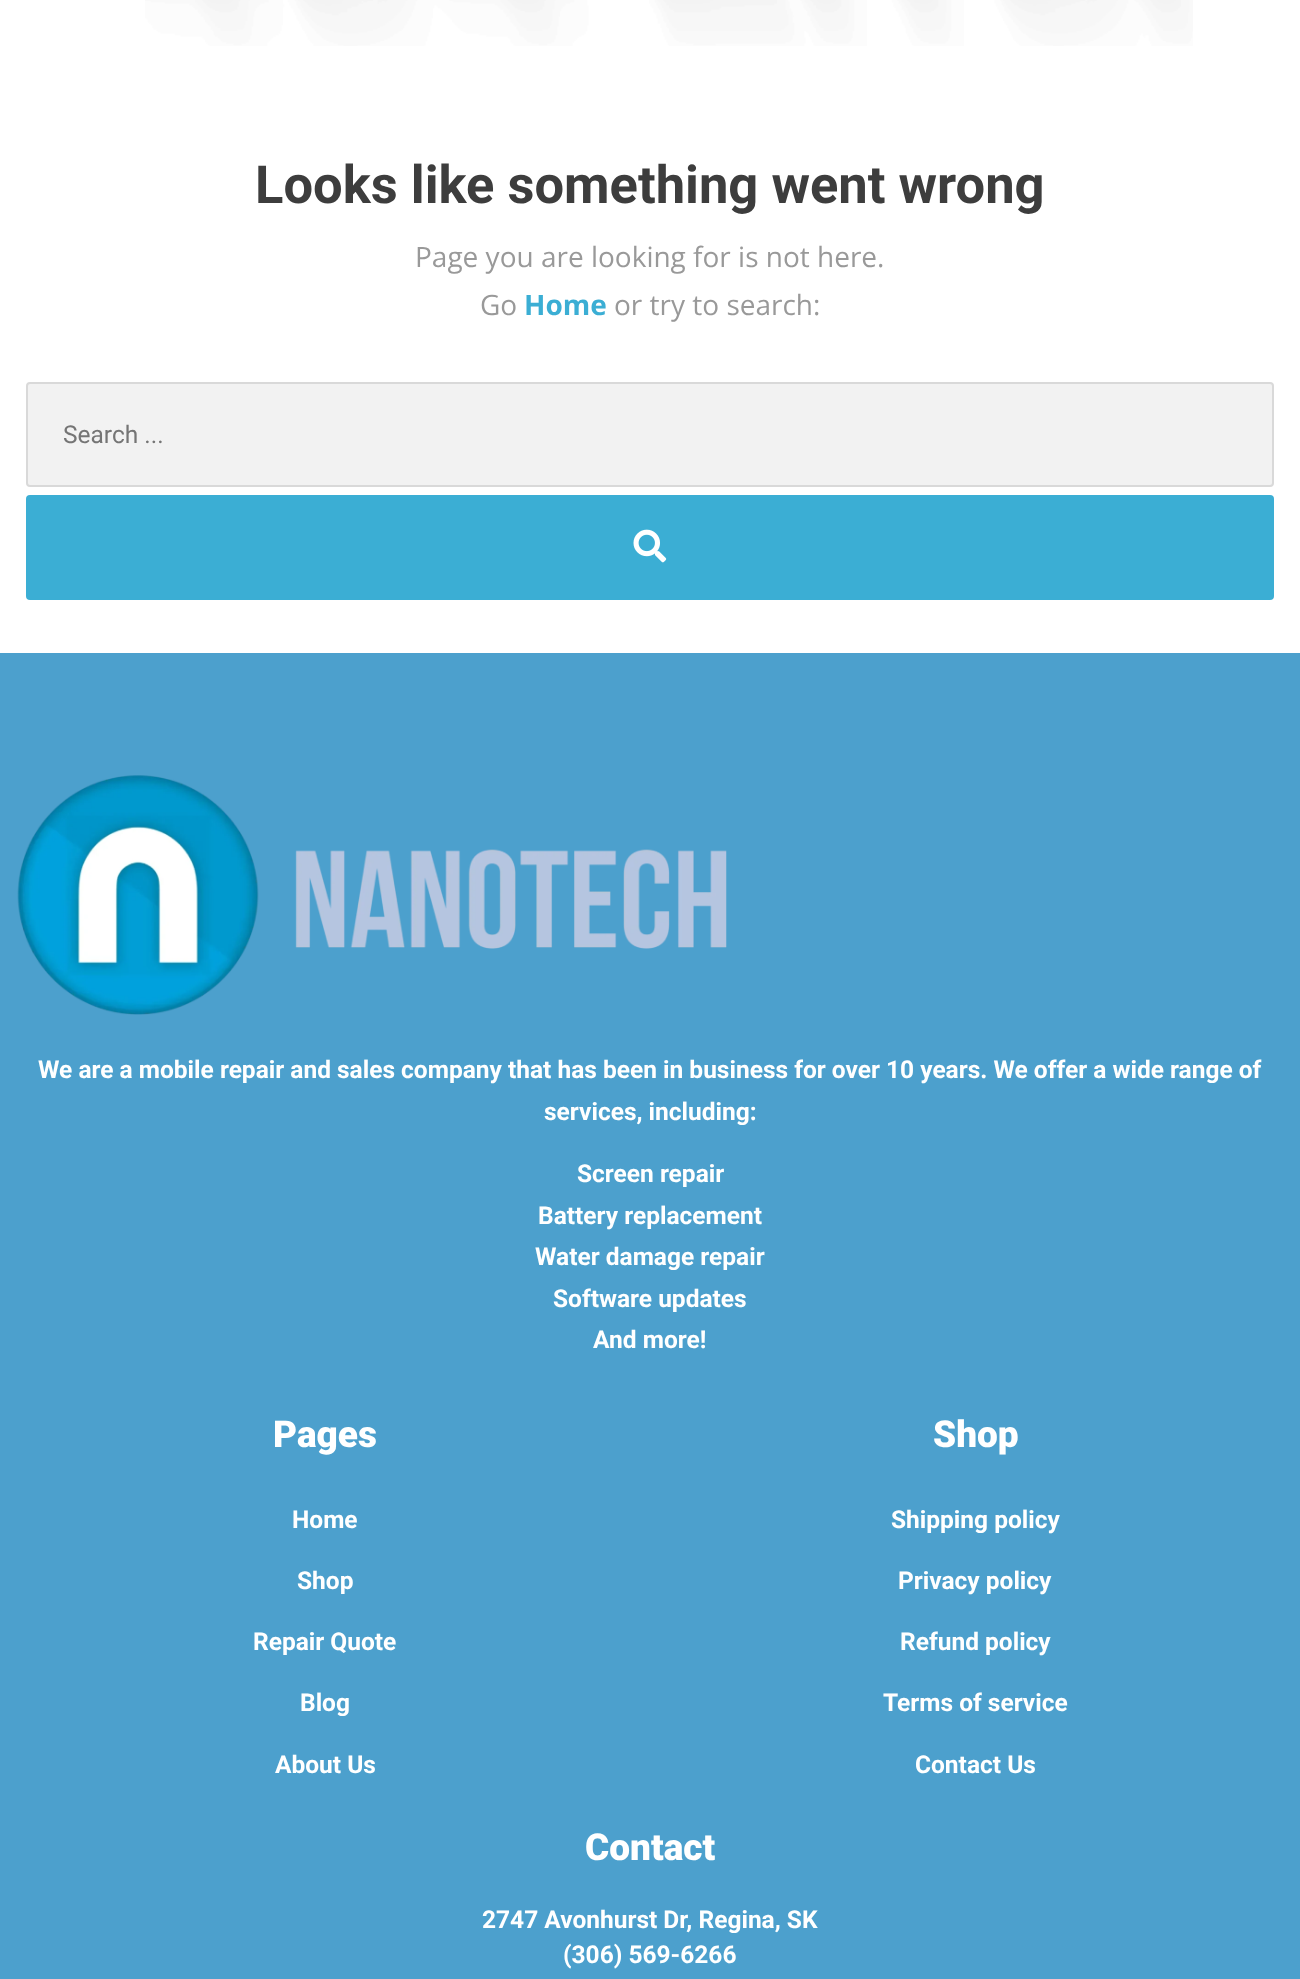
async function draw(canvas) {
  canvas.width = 1300
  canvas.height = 1979
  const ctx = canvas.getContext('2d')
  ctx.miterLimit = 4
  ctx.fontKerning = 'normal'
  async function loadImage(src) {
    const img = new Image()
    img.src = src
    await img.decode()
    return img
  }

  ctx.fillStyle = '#fff'
  ctx.fillRect(0, 0, 1300, 1979)
  ctx.drawImage(await loadImage('image0.png'), 145, 0, 1048, 46)
  ctx.font = 'bold 52.5px Roboto'
  ctx.fillStyle = '#3d3d3d'
  ctx.fillText('Looks like something went wrong', 255, 203)
  ctx.font = '28px Open Sans'
  ctx.fillStyle = '#999'
  ctx.fillText('Page you are looking for is not here.', 415, 267)
  ctx.fillText('Go', 480, 315)
  ctx.font = 'bold 28px Open Sans'
  ctx.fillStyle = '#3baed4'
  ctx.fillText('Home', 524, 315)
  ctx.font = '28px Open Sans'
  ctx.fillStyle = '#999'
  ctx.fillText('or try to search:', 614, 315)
  ctx.fillStyle = '#f2f2f2'
  ctx.beginPath()
  ctx.roundRect(26, 382, 1248, 105, 4)
  ctx.fill()
  ctx.beginPath()
  ctx.roundRect(27, 383, 1246, 103, 3)
  ctx.strokeStyle = '#0000001a'
  ctx.lineWidth = 2
  ctx.stroke()
  ctx.font = '24.5px Roboto'
  ctx.fillStyle = '#757575'
  ctx.fillText('Search ...', 63, 443)
  ctx.fillStyle = '#3baed4'
  ctx.beginPath()
  ctx.roundRect(26, 495, 1248, 105, 4)
  ctx.fill()
  ctx.drawImage(await loadImage('image1.png'), 633, 529, 34, 34)
  ctx.fillStyle = '#4ca0cd'
  ctx.fillRect(0, 653, 1300, 1326)
  ctx.drawImage(await loadImage('image2.png'), 17, 775, 710, 240)
  ctx.font = 'bold 24.5px Roboto'
  ctx.fillStyle = '#fff'
  ctx.fillText('We are a mobile repair and sales company that has been in business for over 10 years. We offer a wide range of', 38, 1078)
  ctx.fillText('services, including:', 544, 1120)
  ctx.fillText('Screen repair', 577, 1182)
  ctx.fillText('Battery replacement', 538, 1224)
  ctx.fillText('Water damage repair', 535, 1265)
  ctx.fillText('Software updates', 553, 1307)
  ctx.fillText('And more!', 593, 1348)
  ctx.font = '900 37px Roboto'
  ctx.fillText('Pages', 273, 1447)
  ctx.font = 'bold 24.5px Roboto'
  ctx.fillText('Home', 292, 1528)
  ctx.fillText('Shop', 297, 1589)
  ctx.fillText('Repair Quote', 253, 1650)
  ctx.fillText('Blog', 300, 1711)
  ctx.fillText('About Us', 275, 1773)
  ctx.font = '900 37px Roboto'
  ctx.fillText('Shop', 933, 1447)
  ctx.font = 'bold 24.5px Roboto'
  ctx.fillText('Shipping policy', 891, 1528)
  ctx.fillText('Privacy policy', 898, 1589)
  ctx.fillText('Refund policy', 900, 1650)
  ctx.fillText('Terms of service', 883, 1711)
  ctx.fillText('Contact Us', 915, 1773)
  ctx.font = '900 37px Roboto'
  ctx.fillText('Contact', 585, 1860)
  ctx.font = 'bold 24.5px Roboto'
  ctx.fillText('2747 Avonhurst Dr, Regina, SK', 482, 1928)
  ctx.fillText('(306) 569-6266', 563, 1963)
}

draw(document.querySelector('canvas'))
